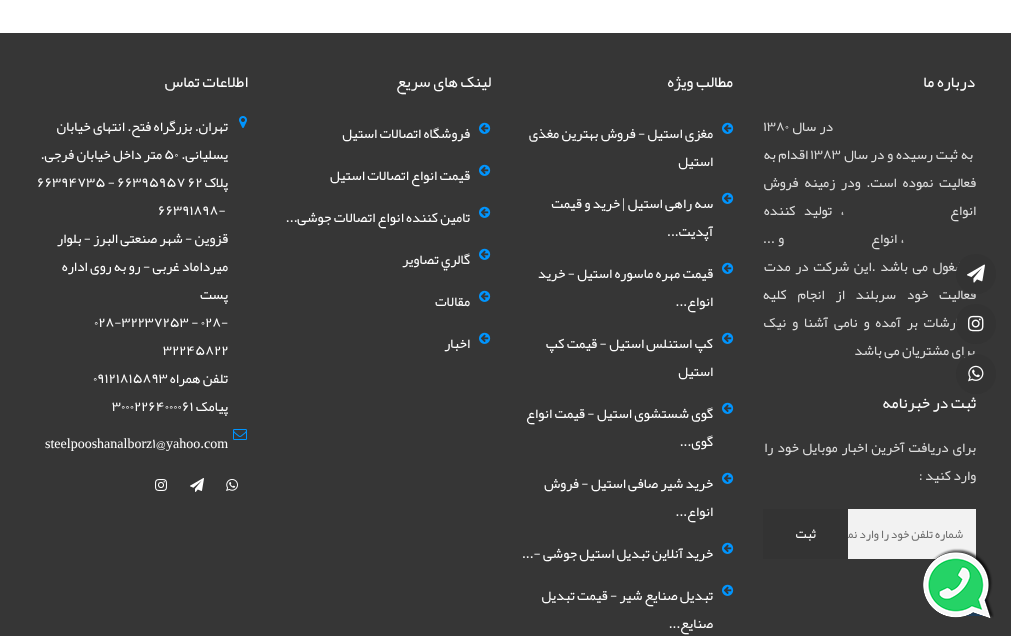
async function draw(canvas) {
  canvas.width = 1011
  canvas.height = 636
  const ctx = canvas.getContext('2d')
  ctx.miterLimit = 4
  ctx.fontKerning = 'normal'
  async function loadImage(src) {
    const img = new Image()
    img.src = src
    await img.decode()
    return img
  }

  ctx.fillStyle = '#fff'
  ctx.fillRect(0, 0, 1011, 636)
  ctx.fillStyle = '#363636'
  ctx.fillRect(0, 33, 1011, 603)
  ctx.direction = 'rtl'
  ctx.font = '16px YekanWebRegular'
  ctx.fillStyle = '#fff'
  ctx.fillText('درباره ما', 975, 87)
  ctx.wordSpacing = '1px'
  ctx.font = '14px YekanWebRegular'
  ctx.fillStyle = '#ddd'
  ctx.fillText('در سال', 833, 131)
  ctx.wordSpacing = '0px'
  ctx.direction = 'ltr'
  ctx.fillText('1380', 763, 131)
  ctx.wordSpacing = '0.5px'
  ctx.direction = 'rtl'
  ctx.fillText('به ثبت رسیده و در سال', 973, 159)
  ctx.wordSpacing = '0px'
  ctx.direction = 'ltr'
  ctx.fillText('1383', 810, 159)
  ctx.direction = 'rtl'
  ctx.fillText('اقدام به', 808, 159)
  ctx.wordSpacing = '3.5px'
  ctx.fillText('فعالیت نموده است. ودر زمینه فروش', 976, 187)
  ctx.wordSpacing = '0px'
  ctx.fillText('انواع', 976, 215)
  ctx.wordSpacing = '6px'
  ctx.fillText('، تولید کننده', 844, 215)
  ctx.wordSpacing = '1px'
  ctx.fillText('، انواع', 904, 243)
  ctx.fillText('و ...', 784, 243)
  ctx.wordSpacing = '2.25px'
  ctx.fillText('.مشغول می باشد .این شرکت در مدت', 976, 271)
  ctx.wordSpacing = '8.5px'
  ctx.fillText('فعالیت خود سربلند از انجام کلیه', 976, 299)
  ctx.wordSpacing = '3.5px'
  ctx.fillText('سفارشات بر آمده و نامی آشنا و نیک', 976, 327)
  ctx.wordSpacing = '0px'
  ctx.fillText('برای مشتریان می باشد', 975, 355)
  ctx.font = '16px YekanWebRegular'
  ctx.fillStyle = '#fff'
  ctx.fillText('ثبت در خبرنامه', 976, 408)
  ctx.wordSpacing = '1.5px'
  ctx.font = '14px YekanWebRegular'
  ctx.fillStyle = '#ddd'
  ctx.fillText('برای دریافت آخرین اخبار موبایل خود را', 976, 452)
  ctx.wordSpacing = '0px'
  ctx.fillText('وارد کنید :', 976, 480)
  ctx.fillStyle = '#f2f2f2'
  ctx.fillRect(848, 509, 128, 50)
  ctx.font = '12px YekanWebRegular'
  ctx.fillStyle = '#6a6a6a'
  ctx.fillText('شماره تلفن خود را وارد نمایید', 963, 538)
  ctx.fillStyle = '#333'
  ctx.fillRect(763, 509, 85, 50)
  ctx.font = '13px YekanWebRegular'
  ctx.fillStyle = '#fff'
  ctx.fillText('ثبت', 816, 538)
  ctx.font = '16px YekanWebRegular'
  ctx.fillText('مطالب ویژه', 733, 87)
  ctx.drawImage(await loadImage('image0.png'), 722, 122, 12, 12)
  ctx.font = '14px YekanWebRegular'
  ctx.fillText('مغزی استیل - فروش بهترین مغذی', 713, 138)
  ctx.fillText('استیل', 713, 166)
  ctx.drawImage(await loadImage('image0.png'), 722, 192, 12, 12)
  ctx.fillText('سه راهی استیل', 713, 208)
  ctx.font = '14px Liberation Serif'
  ctx.fillText('|', 625, 208)
  ctx.font = '14px YekanWebRegular'
  ctx.fillText('خرید و قیمت', 620, 208)
  ctx.fillText('آپدیت...', 713, 236)
  ctx.drawImage(await loadImage('image0.png'), 722, 262, 12, 12)
  ctx.fillText('قیمت مهره ماسوره استیل - خرید', 713, 278)
  ctx.fillText('انواع...', 713, 306)
  ctx.drawImage(await loadImage('image0.png'), 722, 332, 12, 12)
  ctx.fillText('کپ استنلس استیل - قیمت کپ', 713, 348)
  ctx.fillText('استیل', 713, 376)
  ctx.drawImage(await loadImage('image0.png'), 722, 402, 12, 12)
  ctx.fillText('گوی شستشوی استیل - قیمت انواع', 713, 418)
  ctx.fillText('گوی...', 713, 446)
  ctx.drawImage(await loadImage('image0.png'), 722, 472, 12, 12)
  ctx.fillText('خرید شیر صافی استیل - فروش', 713, 488)
  ctx.fillText('انواع...', 713, 516)
  ctx.drawImage(await loadImage('image0.png'), 722, 542, 12, 12)
  ctx.fillText('خرید آنلاین تبدیل استیل جوشی -...', 713, 558)
  ctx.drawImage(await loadImage('image0.png'), 722, 584, 12, 12)
  ctx.fillText('تبدیل صنایع شیر - قیمت تبدیل', 713, 600)
  ctx.fillText('صنایع...', 713, 628)
  ctx.font = '16px YekanWebRegular'
  ctx.fillText('لینک های سریع', 491, 87)
  ctx.drawImage(await loadImage('image0.png'), 479, 122, 12, 12)
  ctx.font = '14px YekanWebRegular'
  ctx.fillText('فروشگاه اتصالات استیل', 470, 138)
  ctx.drawImage(await loadImage('image0.png'), 479, 164, 12, 12)
  ctx.fillText('قیمت انواع اتصالات استیل', 470, 180)
  ctx.drawImage(await loadImage('image0.png'), 479, 206, 12, 12)
  ctx.fillText('تامین کننده انواع اتصالات جوشی...', 470, 222)
  ctx.drawImage(await loadImage('image0.png'), 479, 248, 12, 12)
  ctx.fillText('گالري تصاوير', 470, 264)
  ctx.drawImage(await loadImage('image0.png'), 479, 290, 12, 12)
  ctx.fillText('مقالات', 470, 306)
  ctx.drawImage(await loadImage('image0.png'), 479, 332, 12, 12)
  ctx.fillText('اخبار', 470, 348)
  ctx.font = '16px YekanWebRegular'
  ctx.fillText('اطلاعات تماس', 248, 87)
  ctx.drawImage(await loadImage('image1.png'), 239, 116, 8, 12)
  ctx.font = '14px YekanWebRegular'
  ctx.fillText('تهران. بزرگراه فتح. انتهای خیابان', 228, 131)
  ctx.fillText('یسلیانی.', 228, 159)
  ctx.direction = 'ltr'
  ctx.fillText('50', 164, 159)
  ctx.direction = 'rtl'
  ctx.fillText('متر داخل خیابان فرجی.', 162, 159)
  ctx.fillText('پلاک', 228, 187)
  ctx.direction = 'ltr'
  ctx.fillText('66394735 - 66395957 62', 37, 187)
  ctx.fillText('66391898-', 158, 215)
  ctx.direction = 'rtl'
  ctx.fillText('قزوین - شهر صنعتی البرز - بلوار', 228, 243)
  ctx.fillText('میرداماد غربی - رو به روی اداره', 228, 271)
  ctx.fillText('پست', 228, 299)
  ctx.direction = 'ltr'
  ctx.fillText('028-32237253 - 028-', 94, 327)
  ctx.fillText('32245822', 163, 355)
  ctx.direction = 'rtl'
  ctx.fillText('تلفن همراه', 228, 383)
  ctx.direction = 'ltr'
  ctx.fillText('09121815893', 93, 383)
  ctx.direction = 'rtl'
  ctx.fillText('پیامک', 228, 411)
  ctx.direction = 'ltr'
  ctx.fillText('30002264000061', 112, 411)
  ctx.drawImage(await loadImage('image2.png'), 233, 429, 14, 11)
  ctx.font = '14px Liberation Serif'
  ctx.fillText('com', 204, 448)
  ctx.font = '14px YekanWebRegular'
  ctx.fillText('.', 200, 448)
  ctx.fillText('1@', 152, 448)
  ctx.font = '14px Liberation Serif'
  ctx.fillText('yahoo', 166, 448)
  ctx.fillText('steelpooshanalborz', 45, 448)
  ctx.drawImage(await loadImage('image3.png'), 226, 479, 12, 12)
  ctx.drawImage(await loadImage('image4.png'), 190, 478, 14, 14)
  ctx.drawImage(await loadImage('image5.png'), 155, 479, 12, 12)
  ctx.fillStyle = '#1e3d5a'
  ctx.fillRect(965, 598, 21, 18)
  ctx.fillStyle = '#333'
  ctx.beginPath()
  ctx.arc(976, 274, 20, 0, 2 * Math.PI)
  ctx.fill()
  ctx.drawImage(await loadImage('image6.png'), 967, 264, 18, 19)
  ctx.beginPath()
  ctx.arc(976, 324, 20, 0, 2 * Math.PI)
  ctx.fill()
  ctx.drawImage(await loadImage('image7.png'), 968, 315, 16, 17)
  ctx.beginPath()
  ctx.arc(976, 374, 20, 0, 2 * Math.PI)
  ctx.fill()
  ctx.drawImage(await loadImage('image8.png'), 968, 365, 16, 17)
  ctx.drawImage(await loadImage('image9.png'), 923, 548, 71, 71)
}

draw(document.querySelector('canvas'))
